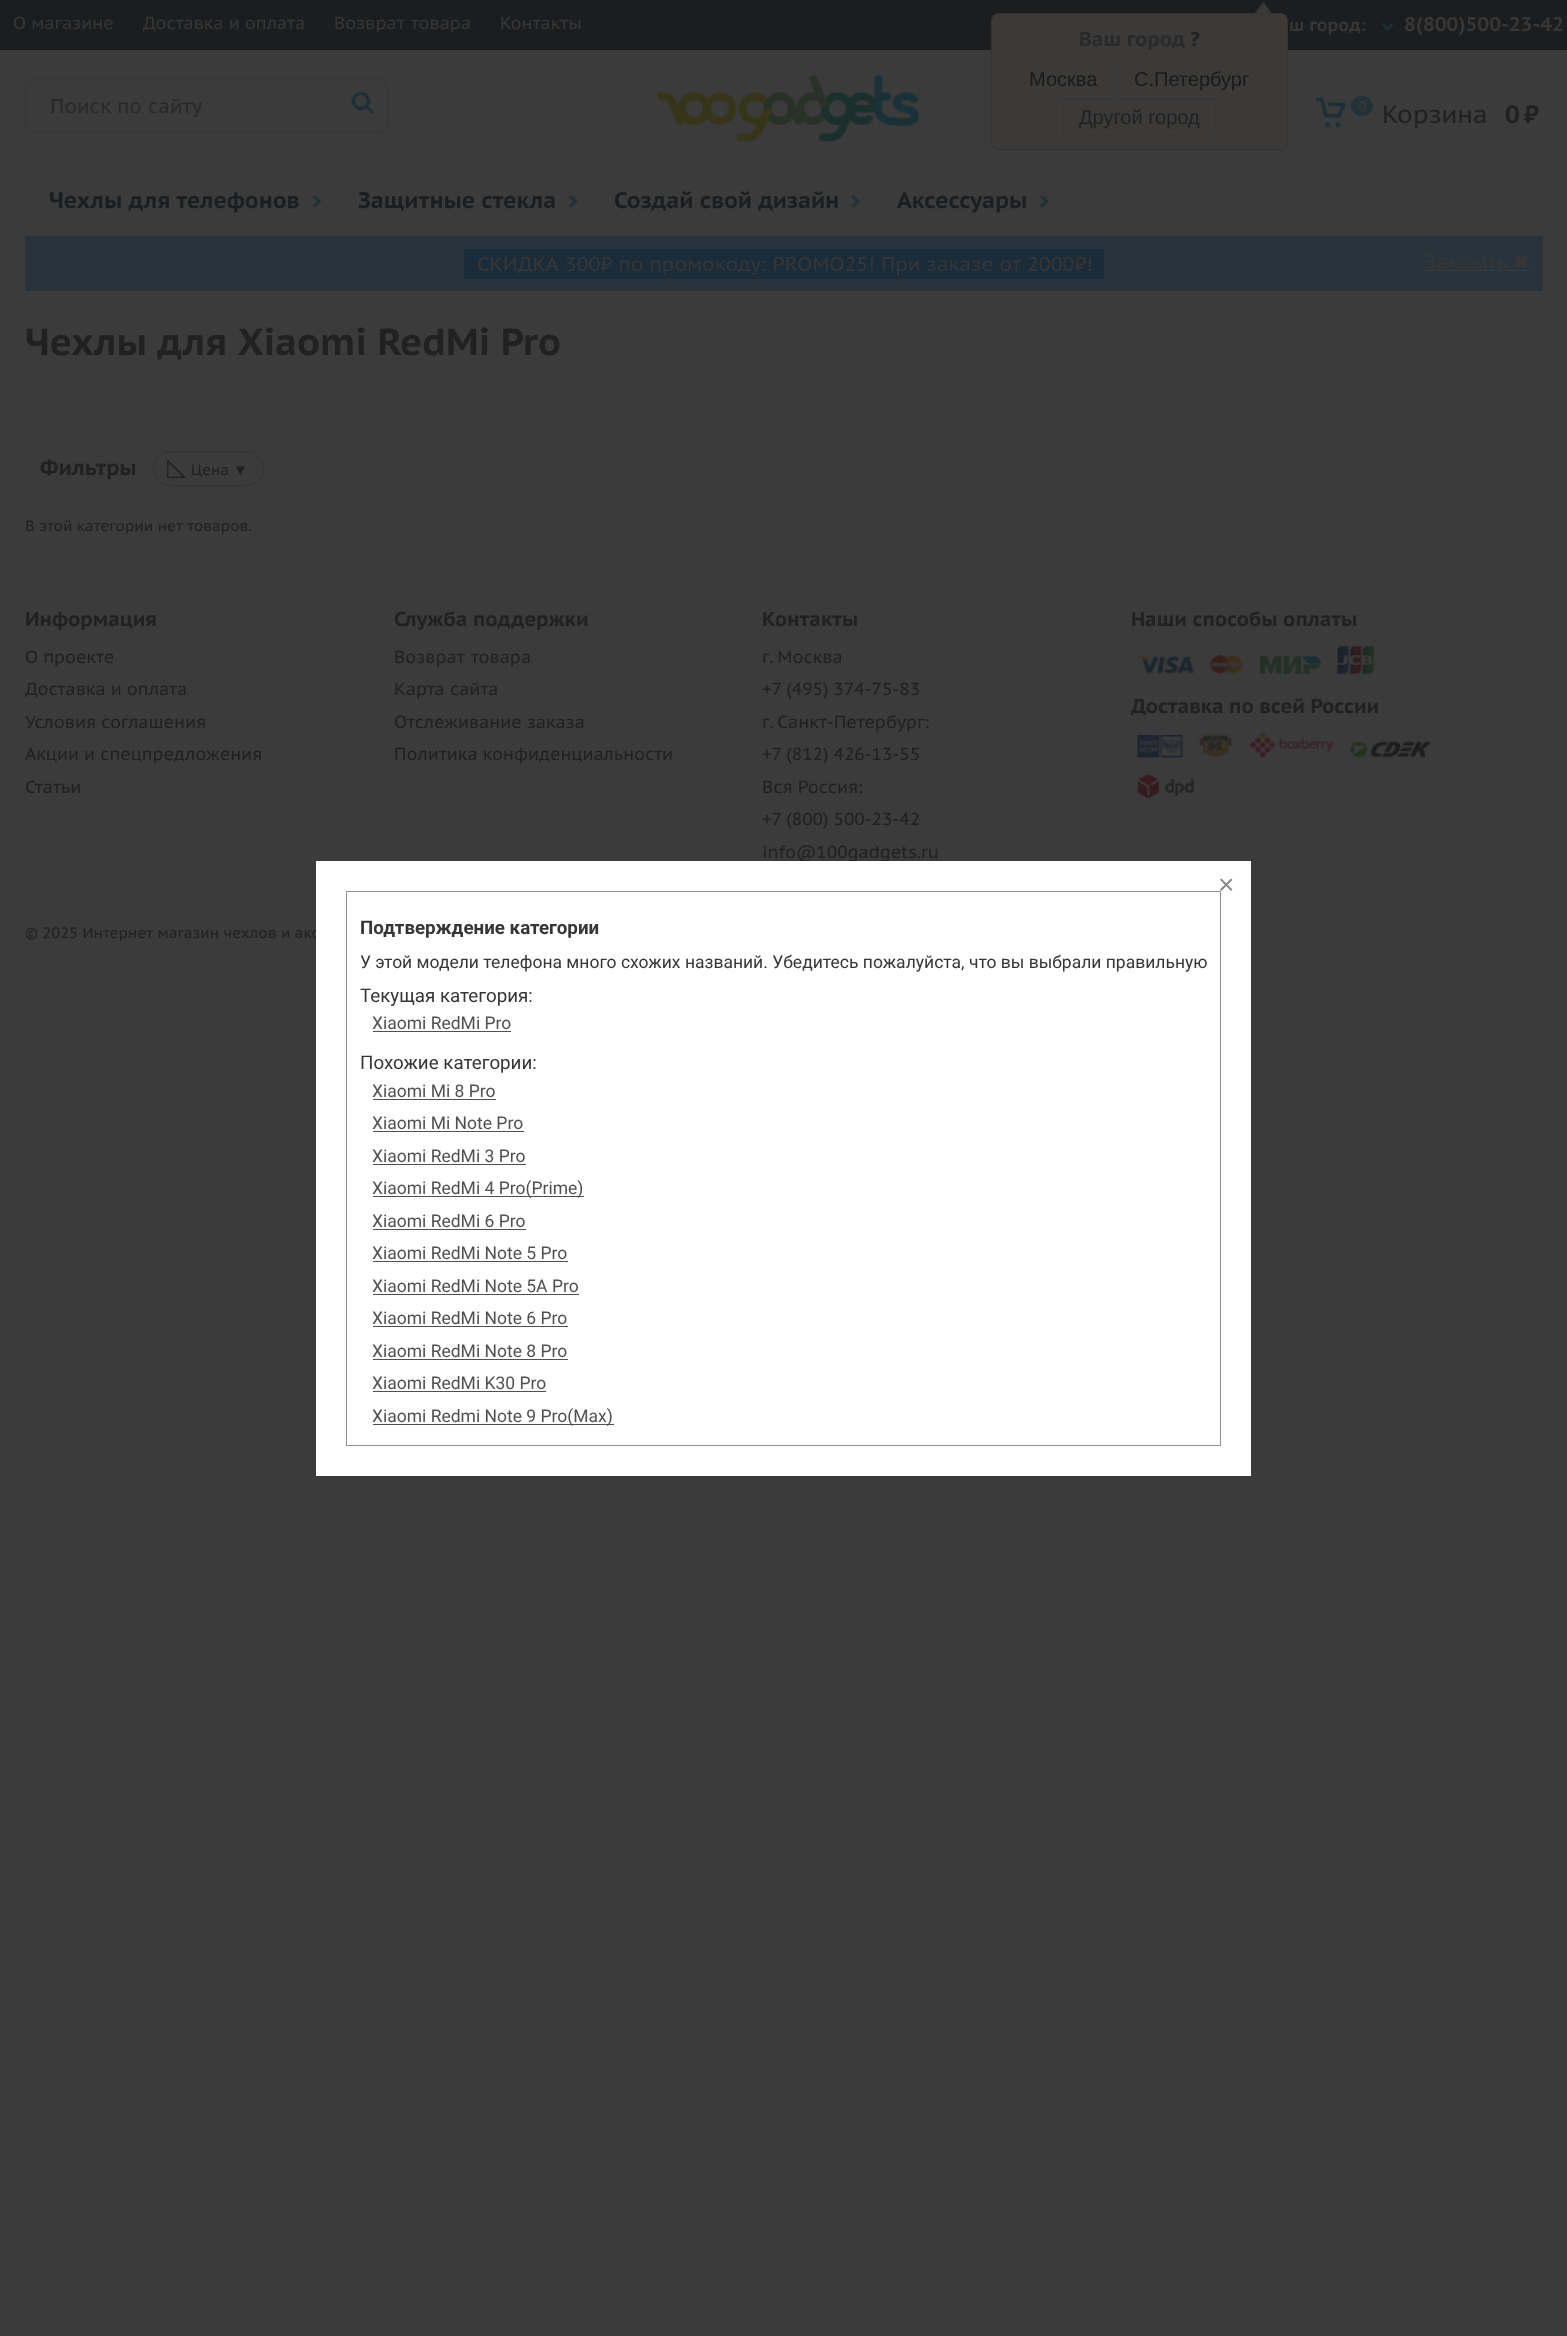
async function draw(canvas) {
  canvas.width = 1567
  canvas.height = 2336
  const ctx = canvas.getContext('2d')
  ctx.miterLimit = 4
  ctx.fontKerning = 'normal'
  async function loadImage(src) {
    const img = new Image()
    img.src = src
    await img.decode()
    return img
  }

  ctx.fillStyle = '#3b3b3b'
  ctx.fillRect(0, 0, 1567, 2336)
  ctx.fillStyle = '#1b1d1f'
  ctx.fillRect(0, 0, 1567, 50)
  ctx.font = '17.5px PT Sans Caption'
  ctx.fillStyle = '#363636'
  ctx.fillText('О магазине', 13, 29)
  ctx.fillText('Доставка и оплата', 143, 29)
  ctx.wordSpacing = '1px'
  ctx.fillText('Возврат товара', 334, 29)
  ctx.wordSpacing = '0px'
  ctx.fillText('Контакты', 500, 29)
  ctx.font = 'bold 17.5px PT Sans Caption'
  ctx.fillText('ш город:', 1289, 31)
  ctx.drawImage(await loadImage('image0.png'), 1381, 22, 13, 10)
  ctx.fillStyle = '#3b3a39'
  ctx.beginPath()
  ctx.roundRect(991, 13, 297, 137, 8)
  ctx.fill()
  ctx.beginPath()
  ctx.roundRect(991.5, 13.5, 296, 136, 7.5)
  ctx.strokeStyle = '#1a1a1a33'
  ctx.stroke()
  ctx.drawImage(await loadImage('image1.png'), 1255, 1, 17, 13)
  ctx.font = 'bold 20px PT Sans Caption'
  ctx.fillStyle = '#292929'
  ctx.fillText('Ваш город', 1079, 46)
  ctx.fillStyle = '#212121'
  ctx.fillText('?', 1190, 46)
  ctx.strokeStyle = '#373737'
  ctx.strokeRect(1013.5, 61.5, 100, 37)
  ctx.font = '20px Liberation Sans'
  ctx.fillStyle = '#1a1a1a'
  ctx.fillText('Москва', 1029, 86)
  ctx.strokeRect(1118.5, 61.5, 147, 37)
  ctx.fillText('С.Петербург', 1134, 86)
  ctx.strokeRect(1063.5, 99.5, 152, 36)
  ctx.fillStyle = '#212121'
  ctx.fillText('Другой город', 1079, 124)
  ctx.font = 'bold 20px PT Sans Caption'
  ctx.fillStyle = '#363636'
  ctx.fillText('8(800)500-23-42', 1404, 31)
  ctx.drawImage(await loadImage('image2.png'), 1315, 96, 32, 32)
  ctx.fillStyle = '#223238'
  ctx.beginPath()
  ctx.roundRect(1351, 96, 22, 20, 10)
  ctx.fill()
  ctx.font = 'bold 14px PT Sans Caption'
  ctx.fillStyle = '#363636'
  ctx.fillText('0', 1358, 111)
  ctx.font = '25px PT Sans Caption'
  ctx.fillStyle = '#212121'
  ctx.fillText('Корзина', 1382, 123)
  ctx.font = 'bold 25px PT Sans Caption'
  ctx.fillText('0', 1505, 123)
  ctx.fillText('₽', 1524, 123)
  ctx.beginPath()
  ctx.roundRect(25.5, 78.5, 362, 54, 9.5)
  ctx.strokeStyle = '#353535'
  ctx.stroke()
  ctx.font = '20px PT Sans Caption'
  ctx.fillStyle = '#292929'
  ctx.fillText('Поиск по сайту', 50, 113)
  ctx.drawImage(await loadImage('image3.png'), 351, 91, 23, 23)
  ctx.drawImage(await loadImage('image4.png'), 657, 75, 262, 67)
  ctx.font = 'bold 22.5px PT Sans Caption'
  ctx.fillStyle = '#1b1e20'
  ctx.fillText('Чехлы для телефонов', 49, 208)
  ctx.drawImage(await loadImage('image5.png'), 312, 195, 10, 13)
  ctx.fillText('Защитные стекла', 358, 208)
  ctx.drawImage(await loadImage('image6.png'), 568, 195, 10, 13)
  ctx.fillText('Создай свой дизайн', 614, 208)
  ctx.drawImage(await loadImage('image7.png'), 851, 195, 9, 13)
  ctx.fillText('Аксессуары', 897, 208)
  ctx.drawImage(await loadImage('image8.png'), 1040, 195, 9, 13)
  ctx.fillStyle = '#29333b'
  ctx.fillRect(25, 236, 1518, 55)
  ctx.fillStyle = '#1a2b39'
  ctx.fillRect(464, 249, 640, 30)
  ctx.wordSpacing = '0.25px'
  ctx.font = '20px PT Sans Caption'
  ctx.fillStyle = '#363636'
  ctx.fillText('СКИДКА 300₽ по промокоду: PROMO25! При заказе от 2000₽!', 477, 271)
  ctx.fillStyle = '#3b3b3b'
  ctx.fillRect(1425, 270, 105, 1)
  ctx.wordSpacing = '0px'
  ctx.fillStyle = '#363636'
  ctx.fillText('Закрыть', 1425, 269)
  ctx.font = '20px DejaVu Sans'
  ctx.fillText('✖', 1513, 269)
  ctx.font = 'bold 37.5px PT Sans Caption'
  ctx.fillStyle = '#212121'
  ctx.fillText('Чехлы для Xiaomi RedMi Pro', 25, 355)
  ctx.font = 'bold 21.25px PT Sans Caption'
  ctx.fillText('Фильтры', 40, 475)
  ctx.beginPath()
  ctx.roundRect(153.5, 451.5, 110, 34, 17)
  ctx.strokeStyle = '#343434'
  ctx.stroke()
  ctx.font = '25px DejaVu Sans'
  ctx.fillText('◺', 167, 475)
  ctx.font = '15px PT Sans Caption'
  ctx.fillText('Цена', 191, 475)
  ctx.font = '15px Liberation Sans'
  ctx.fillText('▼', 233, 475)
  ctx.font = '15px PT Sans Caption'
  ctx.fillText('В этой категории нет товаров.', 25, 531)
  ctx.font = 'bold 20px PT Sans Caption'
  ctx.fillText('Информация', 25, 626)
  ctx.font = '17.5px PT Sans Caption'
  ctx.fillText('О проекте', 25, 663)
  ctx.fillText('Доставка и оплата', 25, 695)
  ctx.fillText('Условия соглашения', 25, 728)
  ctx.fillText('Акции и спецпредложения', 25, 760)
  ctx.fillText('Статьи', 25, 793)
  ctx.font = 'bold 20px PT Sans Caption'
  ctx.fillText('Служба поддержки', 394, 626)
  ctx.wordSpacing = '1px'
  ctx.font = '17.5px PT Sans Caption'
  ctx.fillText('Возврат товара', 394, 663)
  ctx.wordSpacing = '0px'
  ctx.fillText('Карта сайта', 394, 695)
  ctx.fillText('Отслеживание заказа', 394, 728)
  ctx.fillText('Политика конфиденциальности', 394, 760)
  ctx.font = 'bold 20px PT Sans Caption'
  ctx.fillText('Контакты', 762, 626)
  ctx.wordSpacing = '-1px'
  ctx.font = '17.5px PT Sans Caption'
  ctx.fillText('г. Москва', 762, 663)
  ctx.wordSpacing = '0px'
  ctx.fillText('+7 (495) 374-75-83', 762, 695)
  ctx.wordSpacing = '-1px'
  ctx.fillText('г. Санкт-Петербург:', 762, 728)
  ctx.wordSpacing = '0px'
  ctx.fillText('+7 (812) 426-13-55', 762, 760)
  ctx.fillText('Вся Россия:', 762, 793)
  ctx.fillText('+7 (800) 500-23-42', 762, 825)
  ctx.fillText('info@100gadgets.ru', 762, 858)
  ctx.font = 'bold 20px PT Sans Caption'
  ctx.fillText('Наши способы оплаты', 1131, 626)
  ctx.drawImage(await loadImage('image9.png'), 1137, 656, 57, 18)
  ctx.drawImage(await loadImage('image10.png'), 1210, 655, 33, 19)
  ctx.drawImage(await loadImage('image11.png'), 1260, 656, 61, 18)
  ctx.drawImage(await loadImage('image12.png'), 1337, 646, 37, 28)
  ctx.fillText('Доставка по всей России', 1131, 713)
  ctx.drawImage(await loadImage('image13.png'), 1137, 735, 46, 23)
  ctx.drawImage(await loadImage('image14.png'), 1198, 733, 35, 25)
  ctx.drawImage(await loadImage('image15.png'), 1250, 732, 84, 26)
  ctx.drawImage(await loadImage('image16.png'), 1350, 741, 82, 17)
  ctx.drawImage(await loadImage('image17.png'), 1137, 773, 57, 26)
  ctx.font = '15px PT Sans Caption'
  ctx.fillText('© 2025 Интернет магазин чехлов и акс', 25, 938)
  ctx.fillStyle = '#fff'
  ctx.fillRect(316, 861, 935, 615)
  ctx.font = '28px Liberation Sans'
  ctx.fillStyle = '#888'
  ctx.fillText('×', 1218, 894)
  ctx.strokeStyle = '#919191'
  ctx.strokeRect(346.5, 891.5, 874, 554)
  ctx.font = 'bold 18.75px Roboto'
  ctx.fillStyle = '#363636'
  ctx.fillText('Подтверждение категории', 360, 934)
  ctx.font = '17.5px Roboto'
  ctx.fillText('У этой модели телефона много схожих названий. Убедитесь пожалуйста, что вы выбрали правильную', 360, 968)
  ctx.font = '18.75px Roboto'
  ctx.fillText('Текущая категория:', 360, 1002)
  ctx.font = '17.5px Roboto'
  ctx.fillStyle = '#505050'
  ctx.fillText('Xiaomi RedMi Pro', 372, 1029)
  ctx.fillRect(373, 1031, 138, 1)
  ctx.font = '18.75px Roboto'
  ctx.fillStyle = '#363636'
  ctx.fillText('Похожие категории:', 360, 1069)
  ctx.font = '17.5px Roboto'
  ctx.fillStyle = '#505050'
  ctx.fillText('Xiaomi Mi 8 Pro', 372, 1097)
  ctx.fillRect(373, 1099, 123, 1)
  ctx.fillText('Xiaomi Mi Note Pro', 372, 1129)
  ctx.fillRect(373, 1131, 151, 1)
  ctx.fillText('Xiaomi RedMi 3 Pro', 372, 1162)
  ctx.fillRect(373, 1164, 153, 1)
  ctx.fillRect(373, 1196, 211, 1)
  ctx.fillText('Xiaomi RedMi 4 Pro(Prime)', 372, 1194)
  ctx.fillText('Xiaomi RedMi 6 Pro', 372, 1227)
  ctx.fillRect(373, 1229, 153, 1)
  ctx.fillText('Xiaomi RedMi Note 5 Pro', 372, 1259)
  ctx.fillRect(373, 1261, 195, 1)
  ctx.fillText('Xiaomi RedMi Note 5A Pro', 372, 1292)
  ctx.fillRect(373, 1294, 206, 1)
  ctx.fillText('Xiaomi RedMi Note 6 Pro', 372, 1324)
  ctx.fillRect(373, 1326, 195, 1)
  ctx.fillText('Xiaomi RedMi Note 8 Pro', 372, 1357)
  ctx.fillRect(373, 1359, 195, 1)
  ctx.fillText('Xiaomi RedMi K30 Pro', 372, 1389)
  ctx.fillRect(373, 1391, 173, 1)
  ctx.fillRect(373, 1424, 241, 1)
  ctx.fillText('Xiaomi Redmi Note 9 Pro(Max)', 372, 1422)
}

draw(document.querySelector('canvas'))
